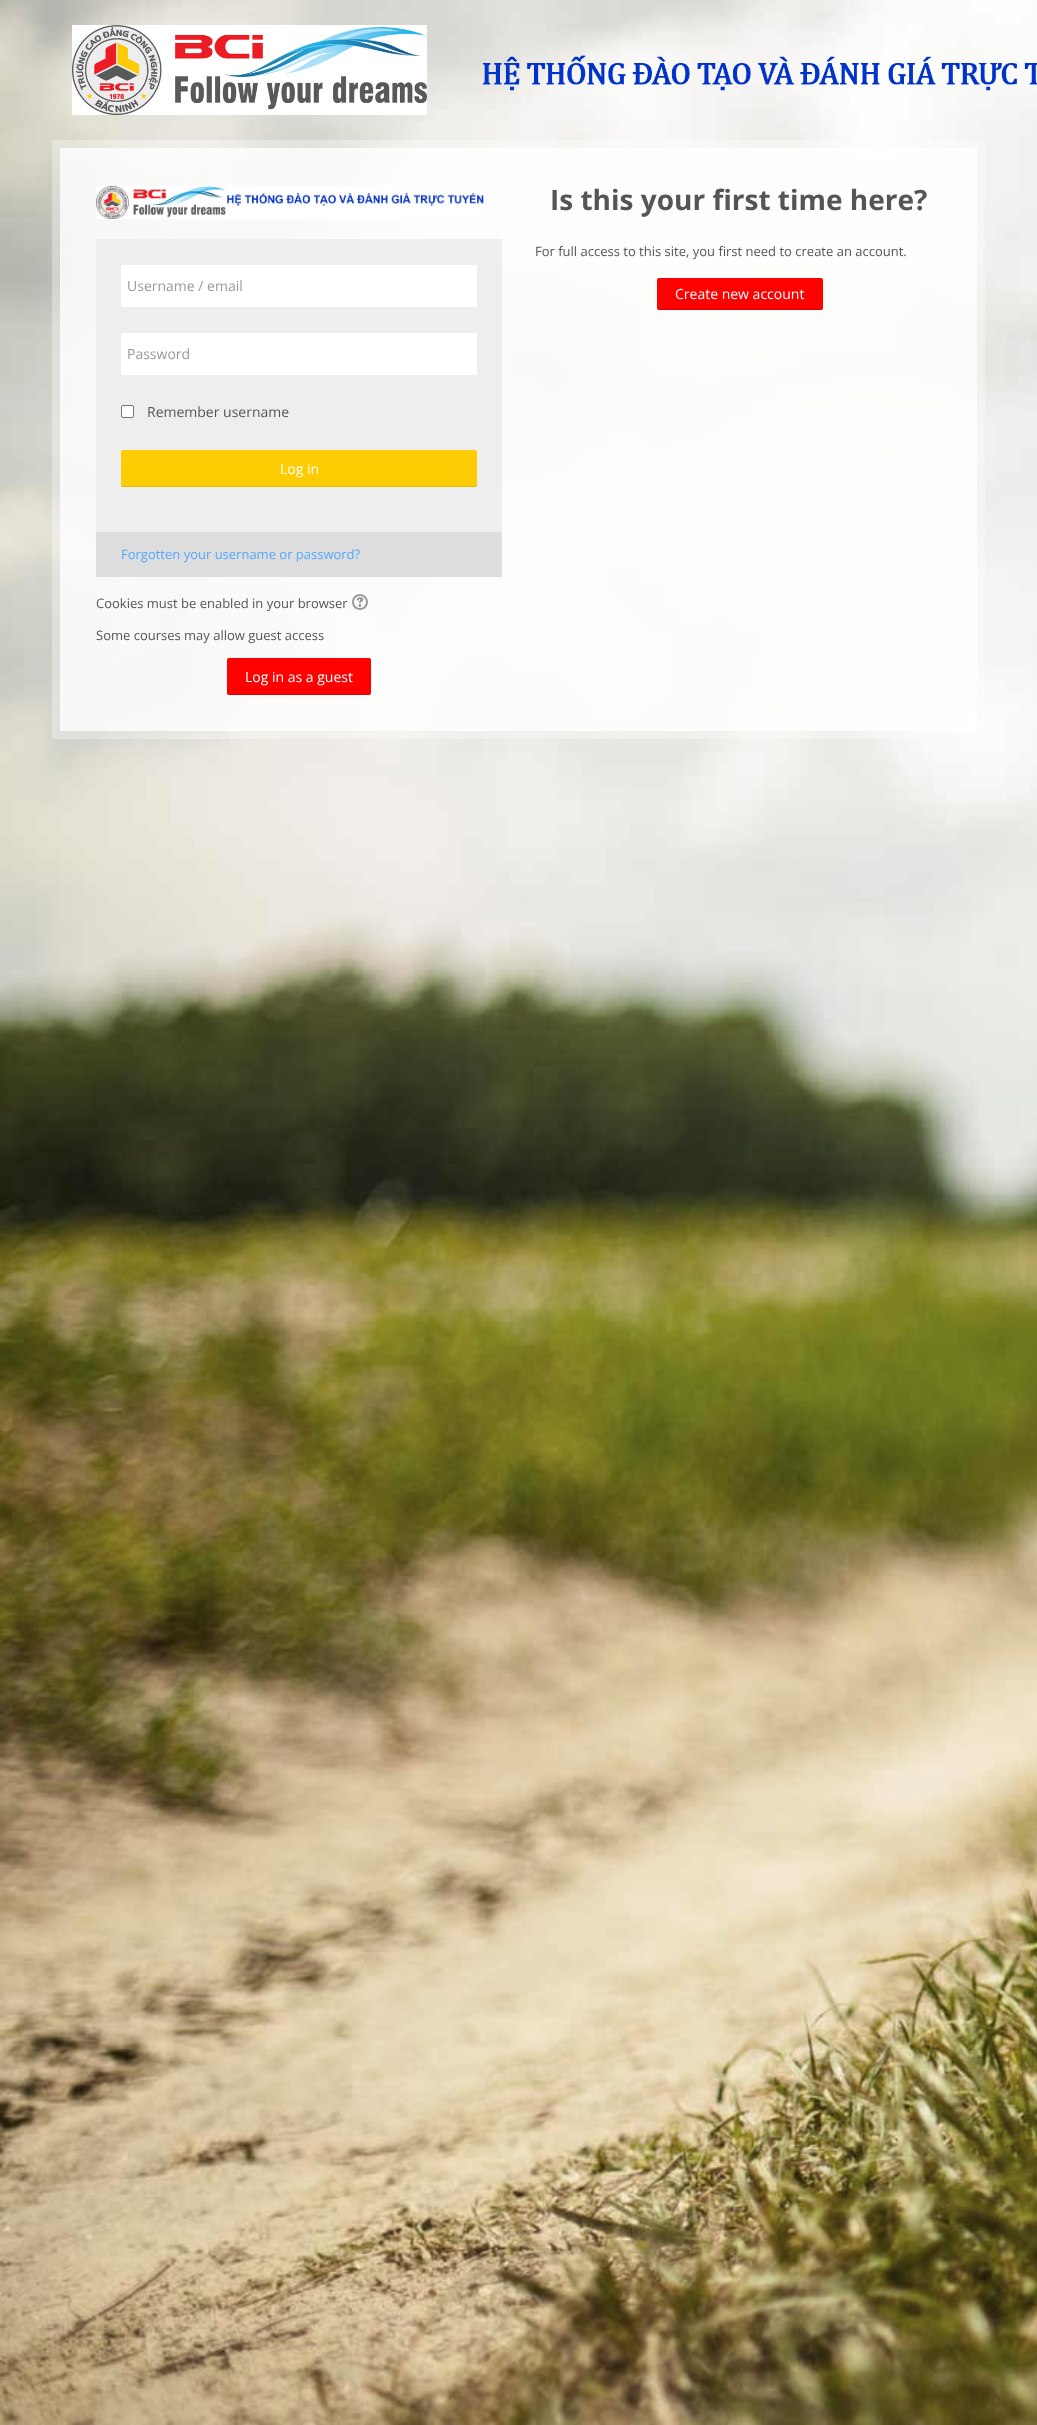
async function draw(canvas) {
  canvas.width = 1037
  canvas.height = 2425
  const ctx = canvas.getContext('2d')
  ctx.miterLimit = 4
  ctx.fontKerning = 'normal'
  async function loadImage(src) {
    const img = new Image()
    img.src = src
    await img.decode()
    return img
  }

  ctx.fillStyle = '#fff'
  ctx.fillRect(0, 0, 1037, 2425)
  ctx.drawImage(await loadImage('image0.png'), 0, 0, 1037, 2425)
  ctx.drawImage(await loadImage('image1.png'), 72, 25, 965, 90)
  ctx.fillStyle = '#ffffffd9'
  ctx.fillRect(60, 148, 917, 583)
  ctx.beginPath()
  ctx.moveTo(56, 144)
  ctx.lineTo(981, 144)
  ctx.lineTo(981, 735)
  ctx.lineTo(56, 735)
  ctx.closePath()
  ctx.strokeStyle = '#ffffff59'
  ctx.lineWidth = 8
  ctx.stroke()
  ctx.font = 'bold 28px Open Sans'
  ctx.fillStyle = '#555'
  ctx.fillText('Is this your first time here?', 550, 210)
  ctx.font = '13px Open Sans'
  ctx.fillText('For full access to this site, you first need to create an account.', 535, 256)
  ctx.fillStyle = '#f00'
  ctx.beginPath()
  ctx.roundRect(657, 278, 166, 32, 2)
  ctx.fill()
  ctx.fillStyle = '#0000001a'
  ctx.beginPath()
  ctx.moveTo(657, 307)
  ctx.bezierCurveTo(657, 308, 657, 310, 659, 310)
  ctx.lineTo(821, 310)
  ctx.bezierCurveTo(823, 310, 823, 308, 823, 307)
  ctx.bezierCurveTo(823, 308, 822, 309, 821, 309)
  ctx.lineTo(659, 309)
  ctx.bezierCurveTo(658, 309, 657, 308, 657, 307)
  ctx.closePath()
  ctx.fill()
  ctx.font = '14px Open Sans'
  ctx.fillStyle = '#fff'
  ctx.fillText('Create new account', 675, 299)
  ctx.drawImage(await loadImage('image2.png'), 96, 186, 388, 33)
  ctx.fillStyle = '#eee'
  ctx.fillRect(96, 239, 406, 293)
  ctx.fillStyle = '#fff'
  ctx.fillRect(121, 265, 356, 42)
  ctx.fillStyle = '#999'
  ctx.fillText('Username / email', 127, 291)
  ctx.fillStyle = '#fff'
  ctx.fillRect(121, 333, 356, 42)
  ctx.fillStyle = '#999'
  ctx.fillText('Password', 127, 359)
  ctx.fillStyle = '#fff'
  ctx.beginPath()
  ctx.roundRect(121.5, 405.5, 12, 12, 1.5)
  ctx.fill()
  ctx.strokeStyle = '#767676'
  ctx.lineWidth = 1
  ctx.stroke()
  ctx.fillStyle = '#555'
  ctx.fillText('Remember username', 147, 417)
  ctx.fillStyle = '#fecc02'
  ctx.beginPath()
  ctx.roundRect(121, 450, 356, 37, 2)
  ctx.fill()
  ctx.fillStyle = '#0000001a'
  ctx.beginPath()
  ctx.moveTo(121, 484)
  ctx.bezierCurveTo(121, 485, 121, 487, 123, 487)
  ctx.lineTo(475, 487)
  ctx.bezierCurveTo(477, 487, 477, 485, 477, 484)
  ctx.bezierCurveTo(477, 485, 476, 486, 475, 486)
  ctx.lineTo(123, 486)
  ctx.bezierCurveTo(122, 486, 121, 485, 121, 484)
  ctx.closePath()
  ctx.fill()
  ctx.fillStyle = '#fff'
  ctx.fillText('Log in', 280, 474)
  ctx.fillStyle = '#ddd'
  ctx.fillRect(96, 532, 406, 45)
  ctx.font = '13px Open Sans'
  ctx.fillStyle = '#52a8ff'
  ctx.fillText('Forgotten your username or password?', 121, 559)
  ctx.fillStyle = '#555'
  ctx.fillText('Cookies must be enabled in your browser', 96, 608)
  ctx.drawImage(await loadImage('image3.png'), 352, 594, 16, 16)
  ctx.fillText('Some courses may allow guest access', 96, 640)
  ctx.fillStyle = '#f00'
  ctx.beginPath()
  ctx.roundRect(227, 658, 144, 37, 2)
  ctx.fill()
  ctx.fillStyle = '#0000001a'
  ctx.beginPath()
  ctx.moveTo(227, 692)
  ctx.lineTo(227, 694)
  ctx.lineTo(229, 695)
  ctx.lineTo(370, 695)
  ctx.bezierCurveTo(371, 694, 371, 693, 371, 692)
  ctx.bezierCurveTo(371, 693, 370, 694, 369, 694)
  ctx.lineTo(229, 694)
  ctx.bezierCurveTo(228, 694, 227, 693, 227, 692)
  ctx.closePath()
  ctx.fill()
  ctx.font = '14px Open Sans'
  ctx.fillStyle = '#fff'
  ctx.fillText('Log in as a guest', 245, 682)
}

draw(document.querySelector('canvas'))
